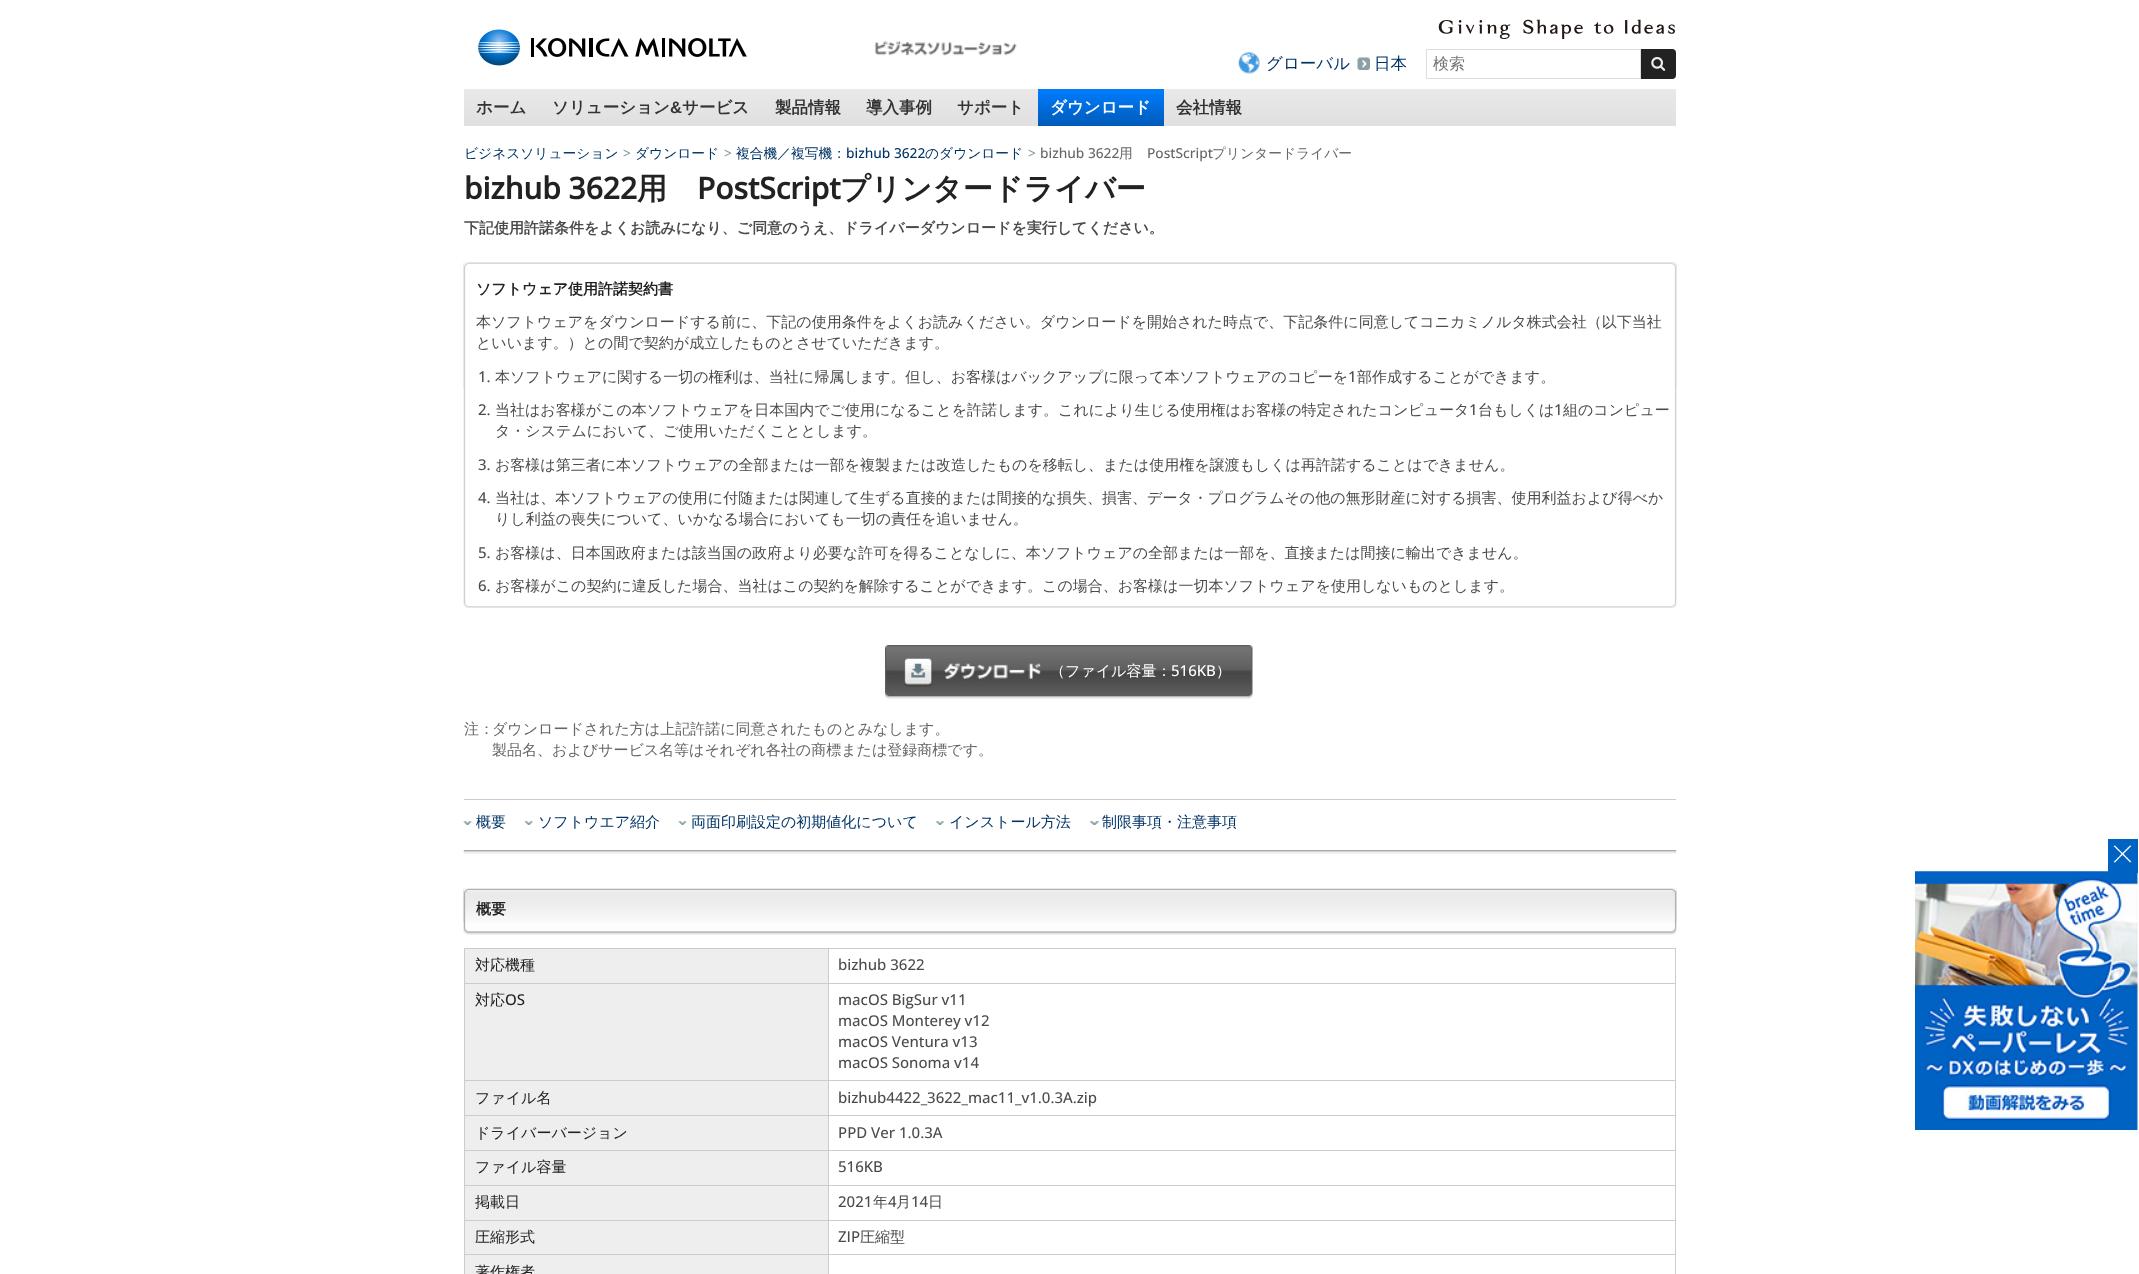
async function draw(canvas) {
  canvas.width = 2139
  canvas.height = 1274
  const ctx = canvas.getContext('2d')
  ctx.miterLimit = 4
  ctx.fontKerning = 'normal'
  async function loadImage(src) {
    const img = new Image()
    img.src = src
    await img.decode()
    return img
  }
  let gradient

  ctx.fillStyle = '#fff'
  ctx.fillRect(0, 0, 2139, 1274)
  ctx.drawImage(await loadImage('image0.png'), 478, 29, 269, 37)
  ctx.drawImage(await loadImage('image1.png'), 874, 41, 143, 15)
  ctx.drawImage(await loadImage('image2.png'), 1438, 19, 237, 20)
  ctx.drawImage(await loadImage('image3.png'), 1238, 52, 22, 22)
  ctx.font = '500 16.5px WenQuanYi Zen Hei'
  ctx.fillStyle = '#036'
  ctx.fillText('グローバル', 1266, 69)
  ctx.drawImage(await loadImage('image4.png'), 1357, 57, 13, 13)
  ctx.fillText('日本', 1374, 69)
  ctx.strokeStyle = '#ddd'
  ctx.strokeRect(1426.5, 49.5, 214, 29)
  ctx.font = '500 16px WenQuanYi Zen Hei'
  ctx.fillStyle = '#757575'
  ctx.fillText('検索', 1433, 69)
  ctx.fillStyle = '#222'
  ctx.beginPath()
  ctx.roundRect(1641, 49, 35, 30, [0, 4, 4, 0])
  ctx.fill()
  ctx.drawImage(await loadImage('image5.png'), 1651, 57, 15, 14)
  gradient = ctx.createLinearGradient(1070, 89, 1070, 126)
  gradient.addColorStop(0, '#e9e9e9')
  gradient.addColorStop(1, '#e0e0e0')
  ctx.fillStyle = gradient
  ctx.fillRect(464, 89, 1212, 37)
  ctx.font = 'bold 16.5px WenQuanYi Zen Hei'
  ctx.fillStyle = '#333'
  ctx.fillText('ホーム', 476, 113)
  ctx.fillText('ソリューション', 552, 113)
  ctx.font = 'bold 16.5px Liberation Sans'
  ctx.fillText('&', 670, 113)
  ctx.font = 'bold 16.5px WenQuanYi Zen Hei'
  ctx.fillText('サービス', 682, 113)
  ctx.fillText('製品情報', 775, 113)
  ctx.fillText('導入事例', 866, 113)
  ctx.fillText('サポート', 957, 113)
  gradient = ctx.createLinearGradient(1101, 89, 1101, 126)
  gradient.addColorStop(0, '#007dff')
  gradient.addColorStop(1, '#005ab8')
  ctx.fillStyle = gradient
  ctx.fillRect(1038, 89, 126, 37)
  ctx.fillStyle = '#fff'
  ctx.fillText('ダウンロード', 1050, 113)
  ctx.fillStyle = '#333'
  ctx.fillText('会社情報', 1176, 113)
  ctx.font = '500 13.75px WenQuanYi Zen Hei'
  ctx.fillStyle = '#036'
  ctx.fillText('ビジネスソリューション', 464, 158)
  ctx.font = '500 13.75px Open Sans'
  ctx.fillStyle = '#8a9fa6'
  ctx.fillText('>', 623, 158)
  ctx.font = '500 13.75px WenQuanYi Zen Hei'
  ctx.fillStyle = '#036'
  ctx.fillText('ダウンロード', 635, 158)
  ctx.font = '500 13.75px Open Sans'
  ctx.fillStyle = '#8a9fa6'
  ctx.fillText('>', 724, 158)
  ctx.font = '500 13.75px WenQuanYi Zen Hei'
  ctx.fillStyle = '#036'
  ctx.fillText('複合機／複写機：', 736, 158)
  ctx.font = '500 13.75px Open Sans'
  ctx.fillText('bizhub 3622', 846, 158)
  ctx.font = '500 13.75px WenQuanYi Zen Hei'
  ctx.fillText('のダウンロード', 925, 158)
  ctx.font = '500 13.75px Open Sans'
  ctx.fillStyle = '#8a9fa6'
  ctx.fillText('>', 1028, 158)
  ctx.fillStyle = '#666'
  ctx.fillText('bizhub 3622', 1040, 158)
  ctx.font = '500 13.75px WenQuanYi Zen Hei'
  ctx.fillText('用', 1119, 158)
  ctx.font = '500 13.75px Open Sans'
  ctx.fillText('PostScript', 1147, 158)
  ctx.font = '500 13.75px WenQuanYi Zen Hei'
  ctx.fillText('プリンタードライバー', 1212, 158)
  ctx.font = 'bold 30px Open Sans'
  ctx.fillStyle = '#222'
  ctx.fillText('bizhub 3622', 464, 199)
  ctx.font = 'bold 30px WenQuanYi Zen Hei'
  ctx.fillText('用', 637, 199)
  ctx.font = 'bold 30px Open Sans'
  ctx.fillText('PostScript', 697, 199)
  ctx.font = 'bold 30px WenQuanYi Zen Hei'
  ctx.fillText('プリンタードライバー', 840, 199)
  ctx.font = 'bold 15px WenQuanYi Zen Hei'
  ctx.fillStyle = '#4b4b4b'
  ctx.fillText('下記使用許諾条件をよくお読みになり、ご同意のうえ、ドライバーダウンロードを実行してください。', 464, 233)
  ctx.drawImage(await loadImage('image6.png'), 463, 262, 1214, 346)
  ctx.drawImage(await loadImage('image7.png'), 463, 262, 1214, 126)
  ctx.fillStyle = '#222'
  ctx.fillText('ソフトウェア使用許諾契約書', 476, 294)
  ctx.font = '500 15px WenQuanYi Zen Hei'
  ctx.fillStyle = '#4b4b4b'
  ctx.fillText('本ソフトウェアをダウンロードする前に、下記の使用条件をよくお読みください。ダウンロードを開始された時点で、下記条件に同意してコニカミノルタ株式会社（以下当社', 476, 327)
  ctx.fillText('といいます。）との間で契約が成立したものとさせていただきます。', 476, 348)
  ctx.font = '500 15px Open Sans'
  ctx.fillText('1.', 478, 382)
  ctx.font = '500 15px WenQuanYi Zen Hei'
  ctx.fillText('本ソフトウェアに関する一切の権利は、当社に帰属します。但し、お客様はバックアップに限って本ソフトウェアのコピーを', 495, 382)
  ctx.font = '500 15px Open Sans'
  ctx.fillText('1', 1348, 382)
  ctx.font = '500 15px WenQuanYi Zen Hei'
  ctx.fillText('部作成することができます。', 1357, 382)
  ctx.font = '500 15px Open Sans'
  ctx.fillText('2.', 478, 415)
  ctx.font = '500 15px WenQuanYi Zen Hei'
  ctx.fillText('当社はお客様がこの本ソフトウェアを日本国内でご使用になることを許諾します。これにより生じる使用権はお客様の特定されたコンピュータ', 495, 415)
  ctx.font = '500 15px Open Sans'
  ctx.fillText('1', 1469, 415)
  ctx.font = '500 15px WenQuanYi Zen Hei'
  ctx.fillText('台もしくは', 1478, 415)
  ctx.font = '500 15px Open Sans'
  ctx.fillText('1', 1554, 415)
  ctx.font = '500 15px WenQuanYi Zen Hei'
  ctx.fillText('組のコンピュー', 1563, 415)
  ctx.fillText('タ・システムにおいて、ご使用いただくこととします。', 495, 436)
  ctx.font = '500 15px Open Sans'
  ctx.fillText('3.', 478, 470)
  ctx.font = '500 15px WenQuanYi Zen Hei'
  ctx.fillText('お客様は第三者に本ソフトウェアの全部または一部を複製または改造したものを移転し、または使用権を譲渡もしくは再許諾することはできません。', 495, 470)
  ctx.font = '500 15px Open Sans'
  ctx.fillText('4.', 478, 503)
  ctx.font = '500 15px WenQuanYi Zen Hei'
  ctx.fillText('当社は、本ソフトウェアの使用に付随または関連して生ずる直接的または間接的な損失、損害、データ・プログラムその他の無形財産に対する損害、使用利益および得べか', 495, 503)
  ctx.fillText('りし利益の喪失について、いかなる場合においても一切の責任を追いません。', 495, 524)
  ctx.font = '500 15px Open Sans'
  ctx.fillText('5.', 478, 558)
  ctx.font = '500 15px WenQuanYi Zen Hei'
  ctx.fillText('お客様は、日本国政府または該当国の政府より必要な許可を得ることなしに、本ソフトウェアの全部または一部を、直接または間接に輸出できません。', 495, 558)
  ctx.font = '500 15px Open Sans'
  ctx.fillText('6.', 478, 591)
  ctx.font = '500 15px WenQuanYi Zen Hei'
  ctx.fillText('お客様がこの契約に違反した場合、当社はこの契約を解除することができます。この場合、お客様は一切本ソフトウェアを使用しないものとします。', 495, 591)
  ctx.drawImage(await loadImage('image8.png'), 885, 645, 368, 54)
  ctx.fillStyle = '#fff'
  ctx.fillText('（ファイル容量：', 1050, 676)
  ctx.font = '500 15px Open Sans'
  ctx.fillText('516KB', 1171, 676)
  ctx.font = '500 15px WenQuanYi Zen Hei'
  ctx.fillText('）', 1216, 676)
  ctx.fillStyle = '#666'
  ctx.fillText('注：', 464, 734)
  ctx.fillText('ダウンロードされた方は上記許諾に同意されたものとみなします。', 492, 734)
  ctx.fillText('製品名、およびサービス名等はそれぞれ各社の商標または登録商標です。', 492, 755)
  ctx.drawImage(await loadImage('image9.png'), 463, 850, 1214, 4)
  ctx.fillStyle = '#ccc'
  ctx.fillRect(464, 799, 1212, 1)
  ctx.drawImage(await loadImage('image10.png'), 463, 821, 9, 4)
  ctx.fillStyle = '#036'
  ctx.fillText('概要', 476, 827)
  ctx.drawImage(await loadImage('image11.png'), 525, 821, 8, 4)
  ctx.fillText('ソフトウエア紹介', 538, 827)
  ctx.drawImage(await loadImage('image10.png'), 678, 821, 9, 4)
  ctx.fillText('両面印刷設定の初期値化について', 691, 827)
  ctx.drawImage(await loadImage('image12.png'), 936, 821, 8, 4)
  ctx.fillText('インストール方法', 949, 827)
  ctx.drawImage(await loadImage('image13.png'), 1090, 821, 9, 4)
  ctx.fillText('制限事項・注意事項', 1102, 827)
  ctx.drawImage(await loadImage('image14.png'), 463, 888, 1214, 47)
  ctx.drawImage(await loadImage('image15.png'), 463, 888, 1214, 35)
  ctx.font = 'bold 15px WenQuanYi Zen Hei'
  ctx.fillStyle = '#222'
  ctx.fillText('概要', 476, 914)
  ctx.fillStyle = '#eee'
  ctx.fillRect(465, 949, 363, 34)
  ctx.fillStyle = '#ccc'
  ctx.fillRect(828, 948, 848, 1)
  ctx.fillRect(828, 983, 848, 1)
  ctx.fillRect(828, 1080, 848, 1)
  ctx.fillRect(828, 1115, 848, 1)
  ctx.fillRect(828, 1150, 848, 1)
  ctx.fillRect(828, 1185, 848, 1)
  ctx.fillRect(828, 1220, 848, 1)
  ctx.fillRect(828, 1254, 848, 1)
  ctx.fillRect(828, 1254, 1, 20)
  ctx.fillRect(464, 1254, 365, 1)
  ctx.fillRect(828, 1220, 1, 35)
  ctx.fillRect(464, 1220, 365, 1)
  ctx.fillRect(828, 1185, 1, 36)
  ctx.fillRect(464, 1185, 365, 1)
  ctx.fillRect(828, 1150, 1, 36)
  ctx.fillRect(464, 1150, 365, 1)
  ctx.fillRect(828, 1115, 1, 36)
  ctx.fillRect(464, 1115, 365, 1)
  ctx.fillRect(828, 1080, 1, 36)
  ctx.fillRect(464, 1080, 365, 1)
  ctx.fillRect(828, 983, 1, 98)
  ctx.fillRect(464, 983, 365, 1)
  ctx.fillRect(828, 948, 1, 36)
  ctx.fillRect(464, 948, 365, 1)
  ctx.fillRect(464, 1254, 1, 20)
  ctx.fillRect(464, 1220, 1, 35)
  ctx.fillRect(464, 1185, 1, 36)
  ctx.fillRect(464, 1150, 1, 36)
  ctx.fillRect(464, 1115, 1, 36)
  ctx.fillRect(464, 1080, 1, 36)
  ctx.fillRect(464, 983, 1, 98)
  ctx.fillRect(464, 948, 1, 36)
  ctx.font = '500 15px WenQuanYi Zen Hei'
  ctx.fillStyle = '#222'
  ctx.fillText('対応機種', 475, 970)
  ctx.fillStyle = '#ccc'
  ctx.fillRect(1675, 1254, 1, 20)
  ctx.fillRect(1675, 1220, 1, 35)
  ctx.fillRect(1675, 1185, 1, 36)
  ctx.fillRect(1675, 1150, 1, 36)
  ctx.fillRect(1675, 1115, 1, 36)
  ctx.fillRect(1675, 1080, 1, 36)
  ctx.fillRect(1675, 983, 1, 98)
  ctx.fillRect(1675, 948, 1, 36)
  ctx.font = '500 15px Open Sans'
  ctx.fillStyle = '#4b4b4b'
  ctx.fillText('bizhub 3622', 838, 970)
  ctx.fillStyle = '#eee'
  ctx.fillRect(465, 984, 363, 96)
  ctx.font = '500 15px WenQuanYi Zen Hei'
  ctx.fillStyle = '#222'
  ctx.fillText('対応', 475, 1005)
  ctx.font = '500 15px Open Sans'
  ctx.fillText('OS', 505, 1005)
  ctx.fillStyle = '#4b4b4b'
  ctx.fillText('macOS BigSur v11', 838, 1005)
  ctx.fillText('macOS Monterey v12', 838, 1026)
  ctx.fillText('macOS Ventura v13', 838, 1047)
  ctx.fillText('macOS Sonoma v14', 838, 1068)
  ctx.fillStyle = '#eee'
  ctx.fillRect(465, 1081, 363, 34)
  ctx.font = '500 15px WenQuanYi Zen Hei'
  ctx.fillStyle = '#222'
  ctx.fillText('ファイル名', 475, 1103)
  ctx.font = '500 15px Open Sans'
  ctx.fillStyle = '#4b4b4b'
  ctx.fillText('bizhub4422_3622_mac11_v1.0.3A.zip', 838, 1103)
  ctx.fillStyle = '#eee'
  ctx.fillRect(465, 1116, 363, 34)
  ctx.font = '500 15px WenQuanYi Zen Hei'
  ctx.fillStyle = '#222'
  ctx.fillText('ドライバーバージョン', 475, 1138)
  ctx.font = '500 15px Open Sans'
  ctx.fillStyle = '#4b4b4b'
  ctx.fillText('PPD Ver 1.0.3A', 838, 1138)
  ctx.fillStyle = '#eee'
  ctx.fillRect(465, 1151, 363, 34)
  ctx.font = '500 15px WenQuanYi Zen Hei'
  ctx.fillStyle = '#222'
  ctx.fillText('ファイル容量', 475, 1172)
  ctx.font = '500 15px Open Sans'
  ctx.fillStyle = '#4b4b4b'
  ctx.fillText('516KB', 838, 1172)
  ctx.fillStyle = '#eee'
  ctx.fillRect(465, 1186, 363, 34)
  ctx.font = '500 15px WenQuanYi Zen Hei'
  ctx.fillStyle = '#222'
  ctx.fillText('掲載日', 475, 1207)
  ctx.font = '500 15px Open Sans'
  ctx.fillStyle = '#4b4b4b'
  ctx.fillText('2021', 838, 1207)
  ctx.font = '500 15px WenQuanYi Zen Hei'
  ctx.fillText('年', 873, 1207)
  ctx.font = '500 15px Open Sans'
  ctx.fillText('4', 888, 1207)
  ctx.font = '500 15px WenQuanYi Zen Hei'
  ctx.fillText('月', 896, 1207)
  ctx.font = '500 15px Open Sans'
  ctx.fillText('14', 911, 1207)
  ctx.font = '500 15px WenQuanYi Zen Hei'
  ctx.fillText('日', 928, 1207)
  ctx.fillStyle = '#eee'
  ctx.fillRect(465, 1221, 363, 33)
  ctx.fillStyle = '#222'
  ctx.fillText('圧縮形式', 475, 1242)
  ctx.font = '500 15px Open Sans'
  ctx.fillStyle = '#4b4b4b'
  ctx.fillText('ZIP', 838, 1242)
  ctx.font = '500 15px WenQuanYi Zen Hei'
  ctx.fillText('圧縮型', 860, 1242)
  ctx.fillStyle = '#eee'
  ctx.fillRect(465, 1255, 363, 19)
  ctx.fillStyle = '#222'
  ctx.fillText('著作権者', 475, 1277)
  ctx.drawImage(await loadImage('image17.png'), 1915, 871, 223, 259)
  ctx.fillStyle = '#0062c3'
  ctx.fillRect(2108, 839, 30, 34)
  ctx.drawImage(await loadImage('image16.png'), 2113, 845, 19, 18)
}

draw(document.querySelector('canvas'))
